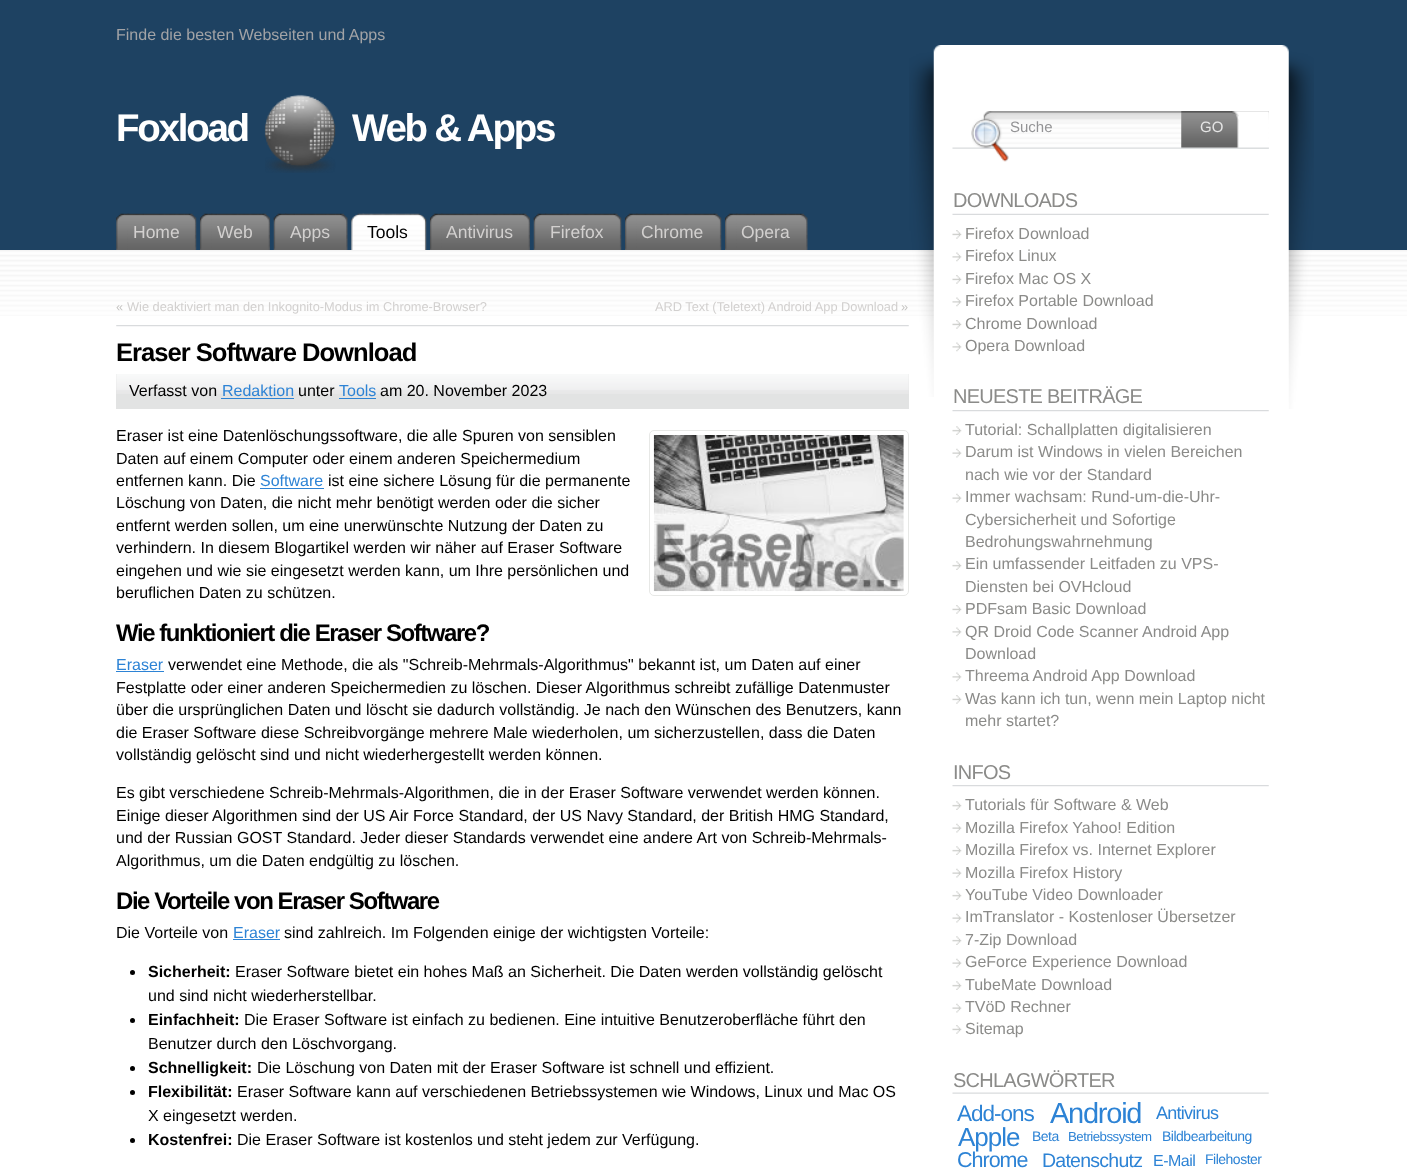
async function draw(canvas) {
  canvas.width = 1407
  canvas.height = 1174
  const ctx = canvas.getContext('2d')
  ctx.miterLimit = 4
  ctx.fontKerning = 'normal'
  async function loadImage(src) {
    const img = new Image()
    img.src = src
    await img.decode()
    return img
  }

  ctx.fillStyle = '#fff'
  ctx.fillRect(0, 0, 1407, 1174)
  ctx.drawImage(await loadImage('image0.png'), 0, 250, 1407, 66)
  ctx.fillStyle = '#1e4262'
  ctx.fillRect(0, 0, 1407, 250)
  ctx.font = '16px Liberation Sans'
  ctx.fillStyle = '#a2a3a6'
  ctx.fillText('Finde die besten Webseiten und Apps', 116, 40)
  ctx.letterSpacing = '-2.25px'
  ctx.font = 'bold 38.5px Liberation Sans'
  ctx.fillStyle = '#fff'
  ctx.fillText('Foxload', 116, 141)
  ctx.drawImage(await loadImage('image1.png'), 264, 94, 72, 79)
  ctx.fillText('Web & Apps', 352, 141)
  ctx.drawImage(await loadImage('image2.png'), 116, 213, 13, 37)
  ctx.drawImage(await loadImage('image3.png'), 127, 213, 70, 37)
  ctx.letterSpacing = '0px'
  ctx.font = '17.5px Liberation Sans'
  ctx.fillStyle = '#d2d0cf'
  ctx.fillText('Home', 133, 238)
  ctx.drawImage(await loadImage('image4.png'), 200, 213, 13, 37)
  ctx.drawImage(await loadImage('image5.png'), 211, 213, 59, 37)
  ctx.fillText('Web', 217, 238)
  ctx.drawImage(await loadImage('image6.png'), 273, 213, 14, 37)
  ctx.drawImage(await loadImage('image7.png'), 285, 213, 63, 37)
  ctx.fillText('Apps', 290, 238)
  ctx.drawImage(await loadImage('image8.png'), 351, 213, 13, 37)
  ctx.drawImage(await loadImage('image9.png'), 362, 213, 65, 37)
  ctx.fillStyle = '#000'
  ctx.fillText('Tools', 367, 238)
  ctx.drawImage(await loadImage('image10.png'), 430, 213, 13, 37)
  ctx.drawImage(await loadImage('image11.png'), 441, 213, 89, 37)
  ctx.fillStyle = '#d2d0cf'
  ctx.fillText('Antivirus', 446, 238)
  ctx.drawImage(await loadImage('image12.png'), 533, 213, 14, 37)
  ctx.drawImage(await loadImage('image13.png'), 545, 213, 77, 37)
  ctx.fillText('Firefox', 550, 238)
  ctx.drawImage(await loadImage('image4.png'), 625, 213, 13, 37)
  ctx.drawImage(await loadImage('image14.png'), 636, 213, 86, 37)
  ctx.fillText('Chrome', 641, 238)
  ctx.drawImage(await loadImage('image10.png'), 725, 213, 13, 37)
  ctx.drawImage(await loadImage('image15.png'), 736, 213, 72, 37)
  ctx.fillText('Opera', 741, 238)
  ctx.font = '12.8px Liberation Sans'
  ctx.fillStyle = '#c4c3c1'
  ctx.fillText('«', 116, 311)
  ctx.fillStyle = '#d2d0cf'
  ctx.fillText('Wie deaktiviert man den Inkognito-Modus im Chrome-Browser?', 127, 311)
  ctx.fillText('ARD Text (Teletext) Android App Download', 655, 311)
  ctx.fillStyle = '#c4c3c1'
  ctx.fillText('»', 901, 311)
  ctx.drawImage(await loadImage('image16.png'), 116, 325, 793, 2)
  ctx.letterSpacing = '-1px'
  ctx.font = 'bold 25.6px Liberation Sans'
  ctx.fillStyle = '#000'
  ctx.fillText('Eraser Software Download', 116, 361)
  ctx.fillStyle = '#e2e3e3'
  ctx.fillRect(116, 374, 793, 35)
  ctx.drawImage(await loadImage('image17.png'), 116, 374, 793, 20)
  ctx.letterSpacing = '0px'
  ctx.font = '16px Liberation Sans'
  ctx.fillStyle = '#000'
  ctx.fillText('Verfasst von', 129, 396)
  ctx.fillStyle = '#2d83d5'
  ctx.fillText('Redaktion', 222, 396)
  ctx.fillRect(221, 398, 73, 1)
  ctx.fillStyle = '#000'
  ctx.fillText('unter', 298, 396)
  ctx.fillStyle = '#2d83d5'
  ctx.fillText('Tools', 339, 396)
  ctx.fillRect(339, 398, 37, 1)
  ctx.fillStyle = '#000'
  ctx.fillText('am 20. November 2023', 380, 396)
  ctx.fillText('Eraser ist eine Datenlöschungssoftware, die alle Spuren von sensiblen', 116, 441)
  ctx.beginPath()
  ctx.roundRect(649.5, 430.5, 259, 165, 4.5)
  ctx.strokeStyle = '#e7e8e6'
  ctx.stroke()
  ctx.drawImage(await loadImage('image18.png'), 653, 435, 251, 157)
  ctx.fillText('Daten auf einem Computer oder einem anderen Speichermedium', 116, 464)
  ctx.fillText('entfernen kann. Die', 116, 486)
  ctx.fillStyle = '#2d83d5'
  ctx.fillText('Software', 260, 486)
  ctx.fillRect(260, 488, 64, 1)
  ctx.fillStyle = '#000'
  ctx.fillText('ist eine sichere Lösung für die permanente', 328, 486)
  ctx.fillText('Löschung von Daten, die nicht mehr benötigt werden oder die sicher', 116, 508)
  ctx.fillText('entfernt werden sollen, um eine unerwünschte Nutzung der Daten zu', 116, 531)
  ctx.fillText('verhindern. In diesem Blogartikel werden wir näher auf Eraser Software', 116, 553)
  ctx.fillText('eingehen und wie sie eingesetzt werden kann, um Ihre persönlichen und', 116, 576)
  ctx.fillText('beruflichen Daten zu schützen.', 116, 598)
  ctx.letterSpacing = '-1.45px'
  ctx.font = 'bold 24px Liberation Sans'
  ctx.fillText('Wie funktioniert die Eraser Software?', 116, 641)
  ctx.letterSpacing = '0px'
  ctx.font = '16px Liberation Sans'
  ctx.fillStyle = '#2d83d5'
  ctx.fillText('Eraser', 116, 670)
  ctx.fillRect(116, 671, 48, 1)
  ctx.fillStyle = '#000'
  ctx.fillText('verwendet eine Methode, die als "Schreib-Mehrmals-Algorithmus" bekannt ist, um Daten auf einer', 168, 670)
  ctx.fillText('Festplatte oder einer anderen Speichermedien zu löschen. Dieser Algorithmus schreibt zufällige Datenmuster', 116, 693)
  ctx.fillText('über die ursprünglichen Daten und löscht sie dadurch vollständig. Je nach den Wünschen des Benutzers, kann', 116, 715)
  ctx.fillText('die Eraser Software diese Schreibvorgänge mehrere Male wiederholen, um sicherzustellen, dass die Daten', 116, 738)
  ctx.fillText('vollständig gelöscht sind und nicht wiederhergestellt werden können.', 116, 760)
  ctx.fillText('Es gibt verschiedene Schreib-Mehrmals-Algorithmen, die in der Eraser Software verwendet werden können.', 116, 798)
  ctx.fillText('Einige dieser Algorithmen sind der US Air Force Standard, der US Navy Standard, der British HMG Standard,', 116, 821)
  ctx.fillText('und der Russian GOST Standard. Jeder dieser Standards verwendet eine andere Art von Schreib-Mehrmals-', 116, 843)
  ctx.fillText('Algorithmus, um die Daten endgültig zu löschen.', 116, 866)
  ctx.letterSpacing = '-1.45px'
  ctx.font = 'bold 24px Liberation Sans'
  ctx.fillText('Die Vorteile von Eraser Software', 116, 909)
  ctx.letterSpacing = '0px'
  ctx.font = '16px Liberation Sans'
  ctx.fillText('Die Vorteile von', 116, 938)
  ctx.fillStyle = '#2d83d5'
  ctx.fillText('Eraser', 233, 938)
  ctx.fillRect(233, 939, 47, 1)
  ctx.fillStyle = '#000'
  ctx.fillText('sind zahlreich. Im Folgenden einige der wichtigsten Vorteile:', 284, 938)
  ctx.beginPath()
  ctx.arc(132.5, 972.5, 2.5, 0, 2 * Math.PI)
  ctx.fill()
  ctx.font = 'bold 16px Liberation Sans'
  ctx.fillText('Sicherheit:', 148, 977)
  ctx.font = '16px Liberation Sans'
  ctx.fillText('Eraser Software bietet ein hohes Maß an Sicherheit. Die Daten werden vollständig gelöscht', 235, 977)
  ctx.fillText('und sind nicht wiederherstellbar.', 148, 1001)
  ctx.beginPath()
  ctx.arc(132.5, 1020.5, 2.5, 0, 2 * Math.PI)
  ctx.fill()
  ctx.font = 'bold 16px Liberation Sans'
  ctx.fillText('Einfachheit:', 148, 1025)
  ctx.font = '16px Liberation Sans'
  ctx.fillText('Die Eraser Software ist einfach zu bedienen. Eine intuitive Benutzeroberfläche führt den', 244, 1025)
  ctx.fillText('Benutzer durch den Löschvorgang.', 148, 1049)
  ctx.beginPath()
  ctx.arc(132.5, 1068.5, 2.5, 0, 2 * Math.PI)
  ctx.fill()
  ctx.font = 'bold 16px Liberation Sans'
  ctx.fillText('Schnelligkeit:', 148, 1073)
  ctx.font = '16px Liberation Sans'
  ctx.fillText('Die Löschung von Daten mit der Eraser Software ist schnell und effizient.', 257, 1073)
  ctx.beginPath()
  ctx.arc(132.5, 1092.5, 2.5, 0, 2 * Math.PI)
  ctx.fill()
  ctx.font = 'bold 16px Liberation Sans'
  ctx.fillText('Flexibilität:', 148, 1097)
  ctx.font = '16px Liberation Sans'
  ctx.fillText('Eraser Software kann auf verschiedenen Betriebssystemen wie Windows, Linux und Mac OS', 237, 1097)
  ctx.fillText('X eingesetzt werden.', 148, 1121)
  ctx.beginPath()
  ctx.arc(132.5, 1140.5, 2.5, 0, 2 * Math.PI)
  ctx.fill()
  ctx.font = 'bold 16px Liberation Sans'
  ctx.fillText('Kostenfrei:', 148, 1145)
  ctx.font = '16px Liberation Sans'
  ctx.fillText('Die Eraser Software ist kostenlos und steht jedem zur Verfügung.', 237, 1145)
  ctx.drawImage(await loadImage('image19.png'), 909, 45, 39, 352)
  ctx.drawImage(await loadImage('image20.png'), 948, 45, 366, 364)
  ctx.drawImage(await loadImage('image21.png'), 952, 111, 317, 51)
  ctx.drawImage(await loadImage('image22.png'), 1181, 111, 88, 38)
  ctx.font = '15px Liberation Sans'
  ctx.fillStyle = '#949496'
  ctx.fillText('Suche', 1010, 132)
  ctx.fillStyle = '#e5e5e5'
  ctx.fillText('GO', 1200, 132)
  ctx.drawImage(await loadImage('image23.png'), 952, 213, 317, 2)
  ctx.letterSpacing = '-0.75px'
  ctx.font = '20px Liberation Sans'
  ctx.fillStyle = '#8b8b89'
  ctx.fillText('DOWNLOADS', 953, 207)
  ctx.drawImage(await loadImage('image24.png'), 952, 230, 10, 9)
  ctx.letterSpacing = '0px'
  ctx.font = '16px Liberation Sans'
  ctx.fillText('Firefox Download', 965, 239)
  ctx.drawImage(await loadImage('image25.png'), 952, 252, 10, 10)
  ctx.fillText('Firefox Linux', 965, 261)
  ctx.drawImage(await loadImage('image24.png'), 952, 275, 10, 9)
  ctx.fillText('Firefox Mac OS X', 965, 284)
  ctx.drawImage(await loadImage('image25.png'), 952, 297, 10, 10)
  ctx.fillText('Firefox Portable Download', 965, 306)
  ctx.drawImage(await loadImage('image24.png'), 952, 320, 10, 9)
  ctx.fillText('Chrome Download', 965, 329)
  ctx.drawImage(await loadImage('image25.png'), 952, 342, 10, 10)
  ctx.fillText('Opera Download', 965, 351)
  ctx.drawImage(await loadImage('image26.png'), 952, 410, 317, 2)
  ctx.letterSpacing = '-0.75px'
  ctx.font = '20px Liberation Sans'
  ctx.fillText('NEUESTE BEITRÄGE', 953, 403)
  ctx.drawImage(await loadImage('image27.png'), 952, 426, 10, 9)
  ctx.letterSpacing = '0px'
  ctx.font = '16px Liberation Sans'
  ctx.fillText('Tutorial: Schallplatten digitalisieren', 965, 435)
  ctx.drawImage(await loadImage('image28.png'), 952, 448, 10, 10)
  ctx.fillText('Darum ist Windows in vielen Bereichen', 965, 457)
  ctx.fillText('nach wie vor der Standard', 965, 480)
  ctx.drawImage(await loadImage('image28.png'), 952, 493, 10, 10)
  ctx.fillText('Immer wachsam: Rund-um-die-Uhr-', 965, 502)
  ctx.fillText('Cybersicherheit und Sofortige', 965, 525)
  ctx.fillText('Bedrohungswahrnehmung', 965, 547)
  ctx.drawImage(await loadImage('image27.png'), 952, 561, 10, 9)
  ctx.fillText('Ein umfassender Leitfaden zu VPS-', 965, 569)
  ctx.fillText('Diensten bei OVHcloud', 965, 592)
  ctx.drawImage(await loadImage('image24.png'), 952, 605, 10, 9)
  ctx.fillText('PDFsam Basic Download', 965, 614)
  ctx.drawImage(await loadImage('image25.png'), 952, 627, 10, 10)
  ctx.fillText('QR Droid Code Scanner Android App', 965, 637)
  ctx.fillText('Download', 965, 659)
  ctx.drawImage(await loadImage('image25.png'), 952, 672, 10, 10)
  ctx.fillText('Threema Android App Download', 965, 681)
  ctx.drawImage(await loadImage('image24.png'), 952, 695, 10, 9)
  ctx.fillText('Was kann ich tun, wenn mein Laptop nicht', 965, 704)
  ctx.fillText('mehr startet?', 965, 726)
  ctx.drawImage(await loadImage('image26.png'), 952, 785, 317, 2)
  ctx.letterSpacing = '-0.75px'
  ctx.font = '20px Liberation Sans'
  ctx.fillText('INFOS', 953, 779)
  ctx.drawImage(await loadImage('image27.png'), 952, 801, 10, 9)
  ctx.letterSpacing = '0px'
  ctx.font = '16px Liberation Sans'
  ctx.fillText('Tutorials für Software & Web', 965, 810)
  ctx.drawImage(await loadImage('image28.png'), 952, 823, 10, 10)
  ctx.fillText('Mozilla Firefox Yahoo! Edition', 965, 833)
  ctx.drawImage(await loadImage('image27.png'), 952, 846, 10, 9)
  ctx.fillText('Mozilla Firefox vs. Internet Explorer', 965, 855)
  ctx.drawImage(await loadImage('image28.png'), 952, 868, 10, 10)
  ctx.fillText('Mozilla Firefox History', 965, 878)
  ctx.drawImage(await loadImage('image27.png'), 952, 891, 10, 9)
  ctx.fillText('YouTube Video Downloader', 965, 900)
  ctx.drawImage(await loadImage('image28.png'), 952, 913, 10, 10)
  ctx.fillText('ImTranslator - Kostenloser Übersetzer', 965, 922)
  ctx.drawImage(await loadImage('image27.png'), 952, 936, 10, 9)
  ctx.fillText('7-Zip Download', 965, 945)
  ctx.drawImage(await loadImage('image28.png'), 952, 958, 10, 10)
  ctx.fillText('GeForce Experience Download', 965, 967)
  ctx.drawImage(await loadImage('image27.png'), 952, 981, 10, 9)
  ctx.fillText('TubeMate Download', 965, 990)
  ctx.drawImage(await loadImage('image28.png'), 952, 1003, 10, 10)
  ctx.fillText('TVöD Rechner', 965, 1012)
  ctx.drawImage(await loadImage('image29.png'), 952, 1025, 10, 9)
  ctx.fillText('Sitemap', 965, 1034)
  ctx.drawImage(await loadImage('image30.png'), 952, 1092, 317, 2)
  ctx.letterSpacing = '-0.75px'
  ctx.font = '20px Liberation Sans'
  ctx.fillText('SCHLAGWÖRTER', 953, 1087)
  ctx.letterSpacing = '-1px'
  ctx.font = '22.5px Liberation Sans'
  ctx.fillStyle = '#2d83d5'
  ctx.fillText('Add-ons', 957, 1121)
  ctx.letterSpacing = '-1.25px'
  ctx.font = '29px Liberation Sans'
  ctx.fillText('Android', 1050, 1123)
  ctx.letterSpacing = '-0.75px'
  ctx.font = '18px Liberation Sans'
  ctx.fillText('Antivirus', 1156, 1119)
  ctx.letterSpacing = '-1px'
  ctx.font = '26px Liberation Sans'
  ctx.fillText('Apple', 958, 1146)
  ctx.letterSpacing = '-0.5px'
  ctx.font = '14px Liberation Sans'
  ctx.fillText('Beta', 1032, 1141)
  ctx.font = '13.25px Liberation Sans'
  ctx.fillText('Betriebssystem', 1068, 1141)
  ctx.font = '14px Liberation Sans'
  ctx.fillText('Bildbearbeitung', 1162, 1141)
  ctx.letterSpacing = '-1px'
  ctx.font = '21.5px Liberation Sans'
  ctx.fillText('Chrome', 957, 1167)
  ctx.letterSpacing = '-0.75px'
  ctx.font = '19.5px Liberation Sans'
  ctx.fillText('Datenschutz', 1042, 1167)
  ctx.letterSpacing = '-0.5px'
  ctx.font = '16px Liberation Sans'
  ctx.fillText('E-Mail', 1153, 1166)
  ctx.font = '14px Liberation Sans'
  ctx.fillText('Filehoster', 1205, 1164)
}

draw(document.querySelector('canvas'))
